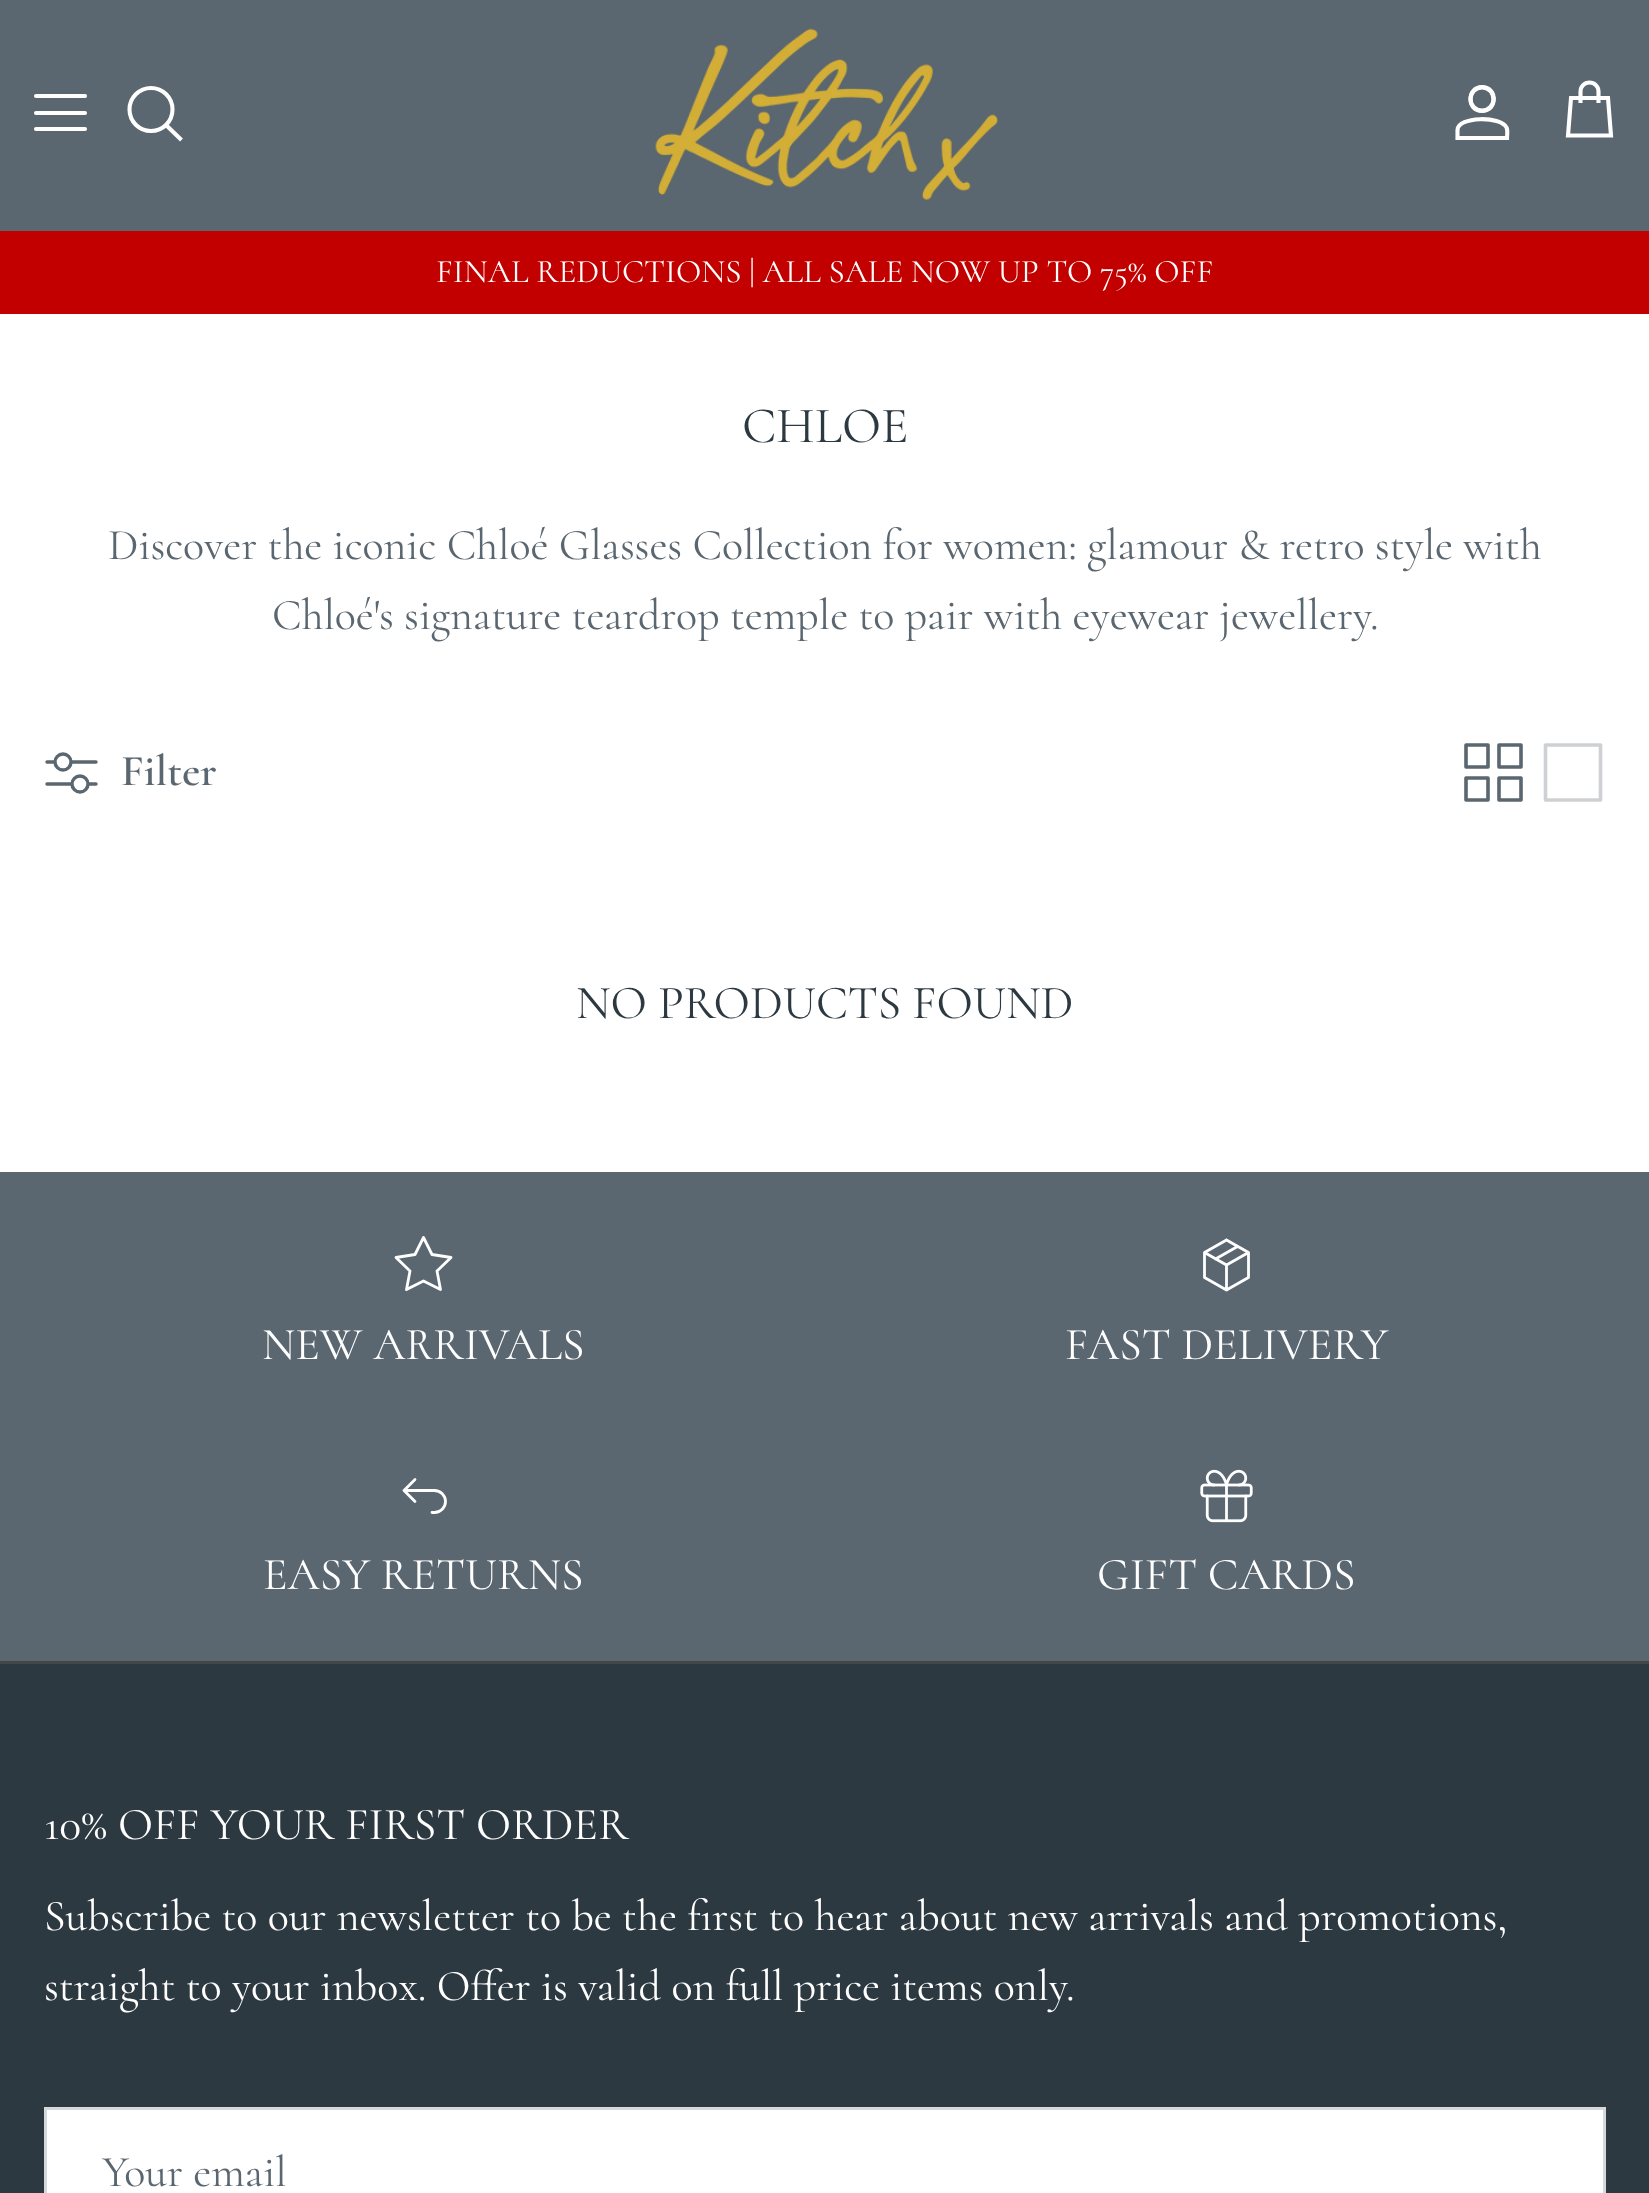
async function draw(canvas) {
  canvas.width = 1649
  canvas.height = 2193
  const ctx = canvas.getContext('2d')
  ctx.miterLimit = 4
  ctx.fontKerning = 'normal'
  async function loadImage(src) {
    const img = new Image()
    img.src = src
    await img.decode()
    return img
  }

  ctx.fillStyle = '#fff'
  ctx.fillRect(0, 0, 1649, 2193)
  ctx.fillStyle = '#5b6770'
  ctx.fillRect(0, 0, 1649, 231)
  ctx.beginPath()
  ctx.moveTo(36, 113)
  ctx.lineTo(85, 113)
  ctx.moveTo(36, 96)
  ctx.lineTo(85, 96)
  ctx.moveTo(36, 129)
  ctx.lineTo(85, 129)
  ctx.strokeStyle = '#fff'
  ctx.lineWidth = 4.1
  ctx.lineCap = 'round'
  ctx.lineJoin = 'round'
  ctx.stroke()
  ctx.beginPath()
  ctx.arc(151, 109.5, 21.5, 0, 2 * Math.PI)
  ctx.stroke()
  ctx.beginPath()
  ctx.moveTo(167.5, 126.5)
  ctx.lineTo(180, 138.5)
  ctx.lineCap = 'square'
  ctx.lineJoin = 'miter'
  ctx.stroke()
  ctx.drawImage(await loadImage('image0.png'), 655, 28, 343, 172)
  ctx.fillStyle = '#fff'
  ctx.beginPath()
  ctx.moveTo(1482, 85)
  ctx.bezierCurveTo(1500.5, 85, 1500.5, 113, 1482, 113)
  ctx.bezierCurveTo(1464, 113, 1464, 85, 1482, 85)
  ctx.closePath()
  ctx.moveTo(1482, 89)
  ctx.bezierCurveTo(1469.5, 89, 1469.5, 109, 1482, 109)
  ctx.bezierCurveTo(1495, 109, 1495, 89, 1482, 89)
  ctx.closePath()
  ctx.fill('evenodd')
  ctx.beginPath()
  ctx.arc(1482, 99, 11.5, 0, 2 * Math.PI)
  ctx.stroke()
  ctx.beginPath()
  ctx.moveTo(1457.5, 130)
  ctx.bezierCurveTo(1457.5, 116.5, 1501, 115.5, 1506.5, 127.5)
  ctx.bezierCurveTo(1508, 130.5, 1507, 135, 1507, 138)
  ctx.lineTo(1457.5, 138)
  ctx.closePath()
  ctx.lineCap = 'butt'
  ctx.stroke()
  ctx.beginPath()
  ctx.moveTo(1598.5, 103)
  ctx.lineTo(1598.5, 91.5)
  ctx.bezierCurveTo(1598.5, 86.5, 1594.5, 82.5, 1589.5, 82.5)
  ctx.bezierCurveTo(1584.5, 82.5, 1580.5, 86.5, 1580.5, 91.5)
  ctx.lineTo(1580.5, 103)
  ctx.moveTo(1571, 98)
  ctx.lineTo(1608, 98)
  ctx.lineTo(1611, 135.5)
  ctx.lineTo(1568, 135.5)
  ctx.closePath()
  ctx.stroke()
  ctx.fillStyle = '#c20000'
  ctx.fillRect(0, 231, 1649, 83)
  ctx.font = '33px Cormorant'
  ctx.fillStyle = '#fff'
  ctx.fillText('FINAL REDUCTIONS | ALL SALE NOW UP TO 75% OFF', 436, 282)
  ctx.font = '51px Cormorant'
  ctx.fillStyle = '#2d3941'
  ctx.fillText('CHLOE', 742, 442)
  ctx.font = '44px Cormorant'
  ctx.fillStyle = '#5b6770'
  ctx.fillText('Discover the iconic Chloé Glasses Collection for women: glamour & retro style with', 108, 559)
  ctx.fillText('Chloé\'s signature teardrop temple to pair with eyewear jewellery.', 272, 629)
  ctx.beginPath()
  ctx.moveTo(47, 762)
  ctx.lineTo(96, 762)
  ctx.moveTo(47, 784)
  ctx.lineTo(96, 784)
  ctx.strokeStyle = '#5b6770'
  ctx.lineWidth = 3.4
  ctx.lineCap = 'round'
  ctx.lineJoin = 'round'
  ctx.stroke()
  ctx.fillStyle = '#fff'
  ctx.beginPath()
  ctx.arc(63, 762, 8, 0, 2 * Math.PI)
  ctx.fill()
  ctx.stroke()
  ctx.beginPath()
  ctx.arc(80, 784, 8, 0, 2 * Math.PI)
  ctx.fill()
  ctx.stroke()
  ctx.font = '600 44px Cormorant'
  ctx.fillStyle = '#5b6770'
  ctx.fillText('Filter', 121, 785)
  ctx.beginPath()
  ctx.moveTo(1466, 745)
  ctx.lineTo(1488, 745)
  ctx.lineTo(1488, 767)
  ctx.lineTo(1466, 767)
  ctx.lineTo(1466, 745)
  ctx.moveTo(1499, 745)
  ctx.lineTo(1521, 745)
  ctx.lineTo(1521, 767)
  ctx.lineTo(1499, 767)
  ctx.lineTo(1499, 745)
  ctx.moveTo(1499, 778)
  ctx.lineTo(1521, 778)
  ctx.lineTo(1521, 800)
  ctx.lineTo(1499, 800)
  ctx.lineTo(1499, 778)
  ctx.moveTo(1466, 778)
  ctx.lineTo(1488, 778)
  ctx.lineTo(1488, 800)
  ctx.lineTo(1466, 800)
  ctx.lineTo(1466, 778)
  ctx.lineWidth = 3.6
  ctx.stroke()
  ctx.beginPath()
  ctx.moveTo(1545.5, 745)
  ctx.lineTo(1600.5, 745)
  ctx.lineTo(1600.5, 800)
  ctx.lineTo(1545.5, 800)
  ctx.lineTo(1545.5, 745)
  ctx.strokeStyle = '#ced1d4'
  ctx.stroke()
  ctx.font = '47.5px Cormorant'
  ctx.fillStyle = '#2d3941'
  ctx.fillText('NO PRODUCTS FOUND', 576, 1018)
  ctx.fillStyle = '#5b6770'
  ctx.fillRect(0, 1172, 1649, 489)
  ctx.beginPath()
  ctx.moveTo(423.5, 1281)
  ctx.lineTo(406.5, 1289.5)
  ctx.lineTo(410, 1271)
  ctx.lineTo(396, 1257.5)
  ctx.lineTo(415, 1254.5)
  ctx.lineTo(423.5, 1237.5)
  ctx.lineTo(432, 1254.5)
  ctx.lineTo(451, 1257.5)
  ctx.lineTo(437, 1271)
  ctx.lineTo(440.5, 1289.5)
  ctx.closePath()
  ctx.strokeStyle = '#fff'
  ctx.lineWidth = 2.8
  ctx.stroke()
  ctx.font = '45.75px Cormorant'
  ctx.fillStyle = '#fff'
  ctx.fillText('NEW ARRIVALS', 262, 1359)
  ctx.beginPath()
  ctx.moveTo(1226.5, 1240)
  ctx.lineTo(1248.5, 1252.5)
  ctx.lineTo(1248.5, 1277.5)
  ctx.lineTo(1226.5, 1290)
  ctx.lineTo(1204.5, 1277.5)
  ctx.lineTo(1204.5, 1252.5)
  ctx.lineTo(1226.5, 1240)
  ctx.moveTo(1226.5, 1265)
  ctx.lineTo(1248.5, 1252.5)
  ctx.moveTo(1226.5, 1265)
  ctx.lineTo(1226.5, 1290)
  ctx.moveTo(1226.5, 1265)
  ctx.lineTo(1204.5, 1252.5)
  ctx.moveTo(1237.5, 1246.5)
  ctx.lineTo(1215.5, 1259)
  ctx.stroke()
  ctx.fillText('FAST DELIVERY', 1065, 1359)
  ctx.beginPath()
  ctx.moveTo(415, 1501.5)
  ctx.lineTo(404, 1490.5)
  ctx.lineTo(415, 1479.5)
  ctx.moveTo(404, 1490.5)
  ctx.lineTo(434.5, 1490.5)
  ctx.bezierCurveTo(440.5, 1490.5, 445.5, 1495.5, 445.5, 1501.5)
  ctx.bezierCurveTo(445.5, 1507.5, 440.5, 1512.5, 434.5, 1512.5)
  ctx.lineTo(432, 1512.5)
  ctx.stroke()
  ctx.fillText('EASY RETURNS', 263, 1589)
  ctx.drawImage(await loadImage('image1.png'), 1200, 1469, 53, 54)
  ctx.fillText('GIFT CARDS', 1097, 1589)
  ctx.fillStyle = '#2d3941'
  ctx.fillRect(0, 1664, 1649, 529)
  ctx.fillStyle = '#434748'
  ctx.fillRect(0, 1661, 1649, 3)
  ctx.fillStyle = '#fff'
  ctx.fillText('10% OFF YOUR FIRST ORDER', 44, 1839)
  ctx.font = '44px Cormorant'
  ctx.fillText('Subscribe to our newsletter to be the first to hear about new arrivals and promotions,', 44, 1930)
  ctx.fillText('straight to your inbox. Offer is valid on full price items only.', 44, 2000)
  ctx.beginPath()
  ctx.rect(45.5, 2108.5, 1559, 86)
  ctx.fill()
  ctx.strokeStyle = '#d6d9db'
  ctx.lineWidth = 3
  ctx.lineJoin = 'miter'
  ctx.stroke()
  ctx.fillStyle = '#5b6770'
  ctx.fillText('Your email', 102, 2186)
}

draw(document.querySelector('canvas'))
